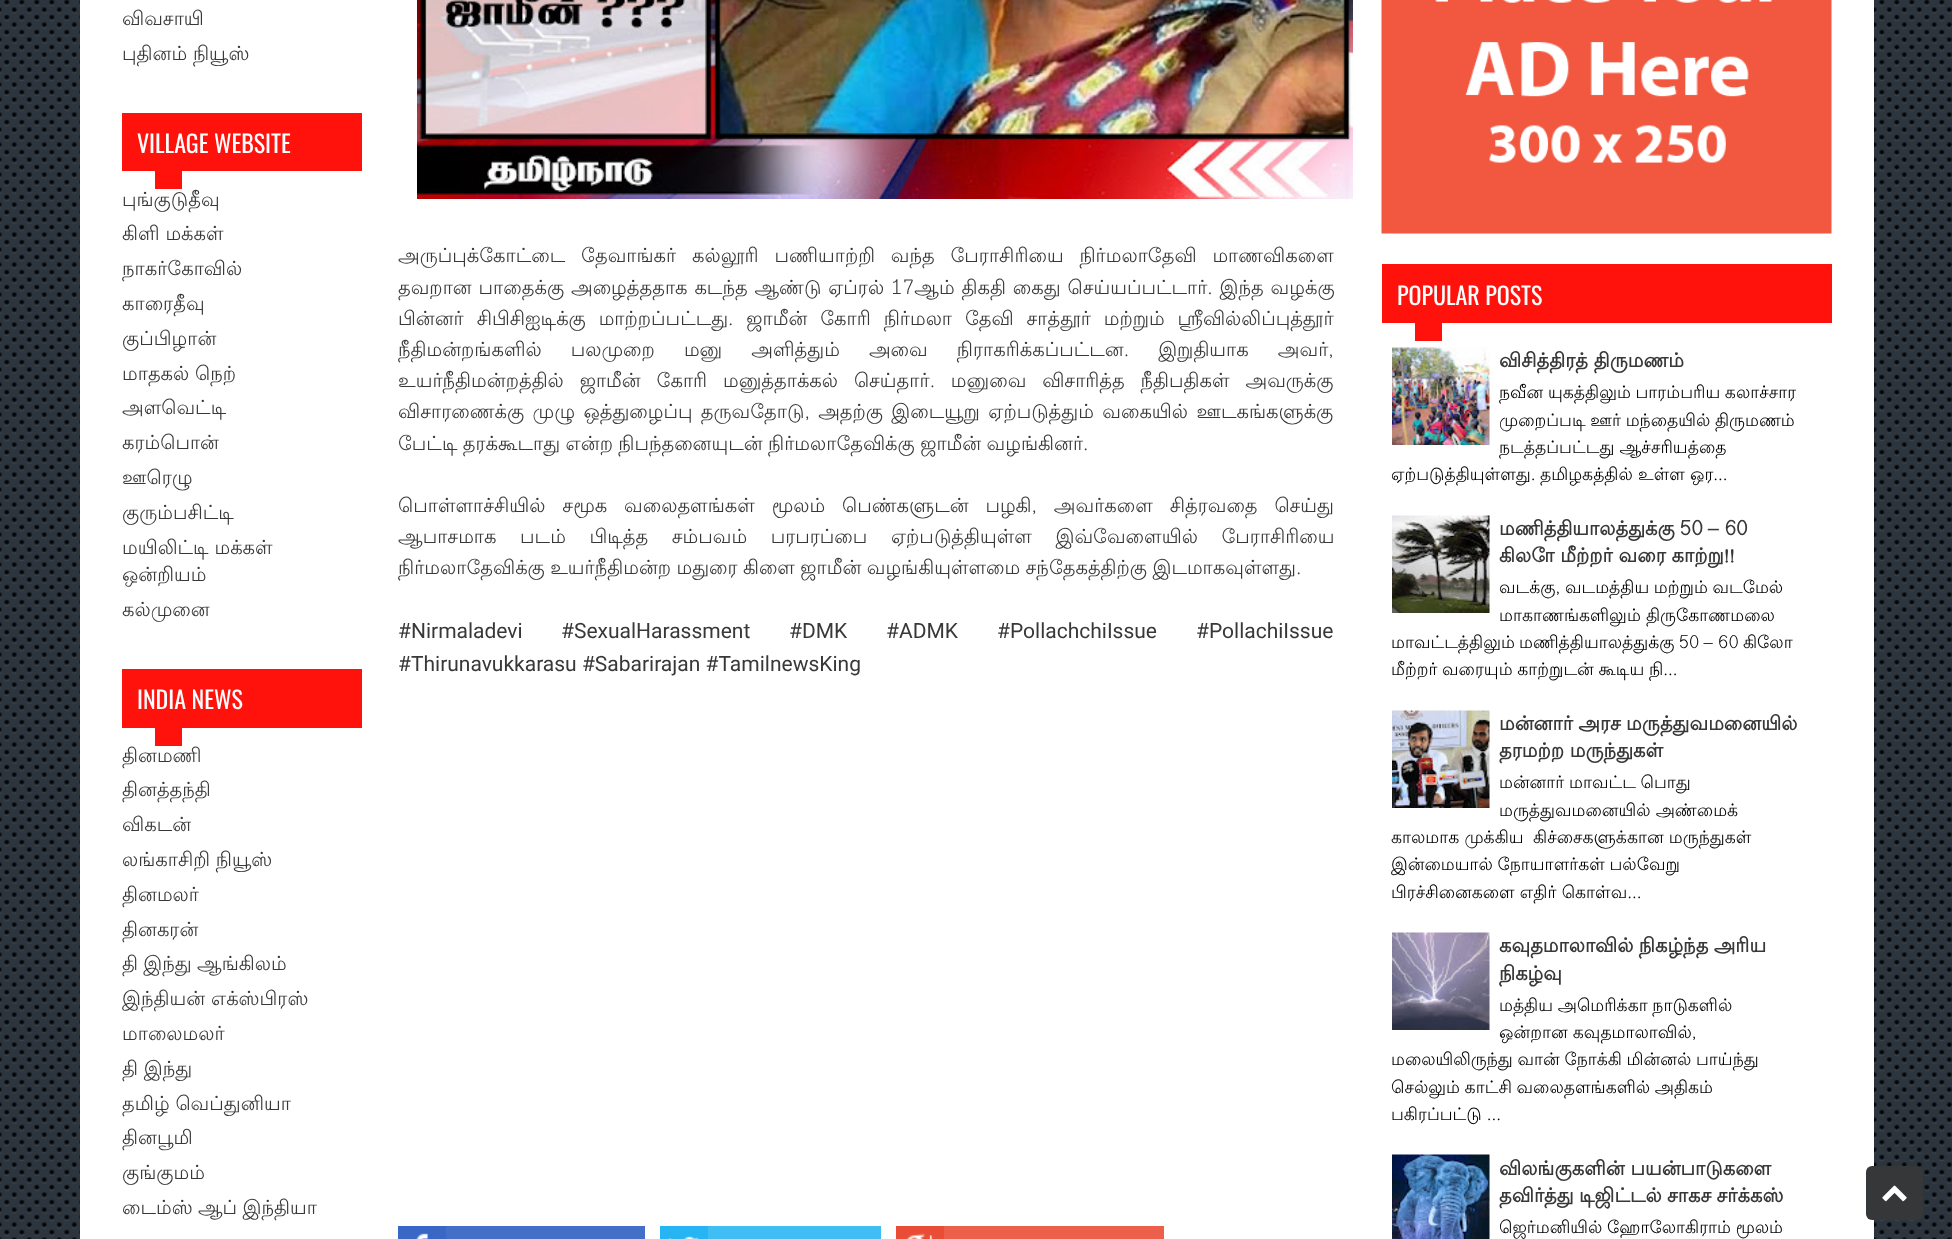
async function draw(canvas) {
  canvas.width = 1952
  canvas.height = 1239
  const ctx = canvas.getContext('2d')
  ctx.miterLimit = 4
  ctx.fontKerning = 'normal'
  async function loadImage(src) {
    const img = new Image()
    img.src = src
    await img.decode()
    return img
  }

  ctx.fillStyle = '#fff'
  ctx.fillRect(0, 0, 1952, 1239)
  ctx.drawImage(await loadImage('image0.png'), 0, 0, 1952, 1239)
  ctx.fillRect(80, 0, 1794, 1239)
  ctx.font = '19.5px Lohit Tamil'
  ctx.fillStyle = '#383838'
  ctx.fillText('விவசாயி', 122, 25)
  ctx.fillText('புதினம் நியூஸ்', 122, 60)
  ctx.fillStyle = '#ff120c'
  ctx.fillRect(122, 113, 240, 58)
  ctx.fillRect(155, 171, 27, 18)
  ctx.font = '24px Oswald'
  ctx.fillStyle = '#fff'
  ctx.fillText('VILLAGE WEBSITE', 137, 153)
  ctx.fillStyle = '#ff120c'
  ctx.beginPath()
  ctx.moveTo(154.5, 171)
  ctx.lineTo(172.5, 171)
  ctx.lineTo(163.5, 180)
  ctx.closePath()
  ctx.fill()
  ctx.font = '19.5px Lohit Tamil'
  ctx.fillStyle = '#383838'
  ctx.fillText('புங்குடுதீவு', 122, 206)
  ctx.fillText('கிளி மக்கள்', 122, 240)
  ctx.fillText('நாகர்கோவில்', 122, 275)
  ctx.fillText('காரைதீவு', 122, 310)
  ctx.fillText('குப்பிழான்', 122, 345)
  ctx.fillText('மாதகல் நெற்', 122, 380)
  ctx.fillText('அளவெட்டி', 122, 414)
  ctx.fillText('கரம்பொன்', 122, 449)
  ctx.fillText('ஊரெழு', 122, 484)
  ctx.fillText('குரும்பசிட்டி', 122, 519)
  ctx.fillText('மயிலிட்டி மக்கள்', 122, 554)
  ctx.fillText('ஒன்றியம்', 122, 581)
  ctx.fillText('கல்முனை', 122, 616)
  ctx.fillStyle = '#ff120c'
  ctx.fillRect(122, 669, 240, 59)
  ctx.font = '24px Oswald'
  ctx.fillStyle = '#fff'
  ctx.fillText('INDIA NEWS', 137, 709)
  ctx.fillStyle = '#ff120c'
  ctx.fillRect(155, 728, 27, 18)
  ctx.font = '19.5px Lohit Tamil'
  ctx.fillStyle = '#383838'
  ctx.fillText('தினமணி', 122, 762)
  ctx.fillText('தினத்தந்தி', 122, 796)
  ctx.fillText('விகடன்', 122, 831)
  ctx.fillText('லங்காசிறி நியூஸ்', 122, 866)
  ctx.fillText('தினமலர்', 122, 901)
  ctx.fillText('தினகரன்', 122, 936)
  ctx.wordSpacing = '-0.5px'
  ctx.fillText('தி இந்து ஆங்கிலம்', 122, 970)
  ctx.wordSpacing = '0px'
  ctx.fillText('இந்தியன் எக்ஸ்பிரஸ்', 122, 1005)
  ctx.fillText('மாலைமலர்', 122, 1040)
  ctx.fillText('தி இந்து', 122, 1075)
  ctx.fillText('தமிழ் வெப்துனியா', 122, 1110)
  ctx.fillText('தினபூமி', 122, 1144)
  ctx.fillText('குங்குமம்', 122, 1179)
  ctx.wordSpacing = '-0.5px'
  ctx.fillText('டைம்ஸ் ஆப் இந்தியா', 122, 1214)
  ctx.drawImage(await loadImage('image1.png'), 417, 0, 936, 199)
  ctx.wordSpacing = '10px'
  ctx.fillText('அருப்புக்கோட்டை தேவாங்கர் கல்லூரி பணியாற்றி வந்த பேராசிரியை நிர்மலாதேவி மாணவிகளை', 398, 262)
  ctx.wordSpacing = '1px'
  ctx.fillText('தவறான பாதைக்கு அழைத்ததாக கடந்த ஆண்டு ஏப்ரல் 17ஆம் திகதி கைது செய்யப்பட்டார். இந்த வழக்கு', 398, 294)
  ctx.wordSpacing = '7px'
  ctx.fillText('பின்னர் சிபிசிஐடிக்கு மாற்றப்பட்டது. ஜாமீன் கோரி நிர்மலா தேவி சாத்தூர் மற்றும் ஸ்ரீவில்லிப்புத்தூர்', 398, 325)
  ctx.wordSpacing = '23.25px'
  ctx.fillText('நீதிமன்றங்களில் பலமுறை மனு அளித்தும் அவை நிராகரிக்கப்பட்டன. இறுதியாக அவர்,', 398, 356)
  ctx.wordSpacing = '10px'
  ctx.fillText('உயர்நீதிமன்றத்தில் ஜாமீன் கோரி மனுத்தாக்கல் செய்தார். மனுவை விசாரித்த நீதிபதிகள் அவருக்கு', 398, 387)
  ctx.wordSpacing = '2.5px'
  ctx.fillText('விசாரணைக்கு முழு ஒத்துழைப்பு தருவதோடு, அதற்கு இடையூறு ஏற்படுத்தும் வகையில் ஊடகங்களுக்கு', 398, 418)
  ctx.wordSpacing = '-0.5px'
  ctx.fillText('பேட்டி தரக்கூடாது என்ற நிபந்தனையுடன் நிர்மலாதேவிக்கு ஜாமீன் வழங்கினர்.', 398, 450)
  ctx.wordSpacing = '11px'
  ctx.fillText('பொள்ளாச்சியில் சமூக வலைதளங்கள் மூலம் பெண்களுடன் பழகி, அவர்களை சித்ரவதை செய்து', 398, 512)
  ctx.wordSpacing = '17.75px'
  ctx.fillText('ஆபாசமாக படம் பிடித்த சம்பவம் பரபரப்பை ஏற்படுத்தியுள்ள இவ்வேளையில் பேராசிரியை', 398, 543)
  ctx.wordSpacing = '-0.5px'
  ctx.fillText('நிர்மலாதேவிக்கு உயர்நீதிமன்ற மதுரை கிளை ஜாமீன் வழங்கியுள்ளமை சந்தேகத்திற்கு இடமாகவுள்ளது.', 398, 574)
  ctx.wordSpacing = '0px'
  ctx.font = '21px Roboto'
  ctx.fillText('#Nirmaladevi', 398, 638)
  ctx.fillText('#SexualHarassment', 561, 638)
  ctx.fillText('#DMK', 789, 638)
  ctx.fillText('#ADMK', 886, 638)
  ctx.fillText('#PollachchiIssue', 997, 638)
  ctx.fillText('#PollachiIssue', 1196, 638)
  ctx.fillText('#Thirunavukkarasu #Sabarirajan #TamilnewsKing', 398, 671)
  ctx.fillStyle = '#436fc9'
  ctx.fillRect(446, 1226, 199, 13)
  ctx.fillStyle = '#3967c6'
  ctx.fillRect(398, 1226, 48, 13)
  ctx.drawImage(await loadImage('image2.png'), 416, 1233, 12, 6)
  ctx.fillStyle = '#40bef4'
  ctx.fillRect(708, 1226, 173, 13)
  ctx.fillStyle = '#26b5f2'
  ctx.fillRect(660, 1226, 48, 13)
  ctx.drawImage(await loadImage('image3.png'), 668, 1236, 31, 3)
  ctx.fillStyle = '#ec5f4a'
  ctx.fillRect(944, 1226, 220, 13)
  ctx.fillStyle = '#e94d36'
  ctx.fillRect(896, 1226, 48, 13)
  ctx.drawImage(await loadImage('image4.png'), 907, 1233, 26, 6)
  ctx.drawImage(await loadImage('image5.png'), 1381, 0, 451, 234)
  ctx.fillStyle = '#ff120c'
  ctx.fillRect(1382, 264, 450, 59)
  ctx.font = '24px Oswald'
  ctx.fillStyle = '#fff'
  ctx.fillText('POPULAR POSTS', 1397, 305)
  ctx.fillStyle = '#ff120c'
  ctx.fillRect(1415, 323, 27, 18)
  ctx.drawImage(await loadImage('image6.png'), 1392, 347, 98, 98)
  ctx.font = 'bold 19.5px Lohit Tamil'
  ctx.fillStyle = '#383838'
  ctx.fillText('விசித்திரத் திருமணம்', 1499, 367)
  ctx.wordSpacing = '-0.5px'
  ctx.font = '17.25px Lohit Tamil'
  ctx.fillStyle = '#000'
  ctx.fillText('நவீன யுகத்திலும் பாரம்பரிய கலாச்சார', 1499, 398)
  ctx.fillText('முறைப்படி ஊர் மந்தையில் திருமணம்', 1499, 426)
  ctx.wordSpacing = '0px'
  ctx.fillText('நடத்தப்பட்டது ஆச்சரியத்தை', 1499, 453)
  ctx.fillText('ஏற்படுத்தியுள்ளது.', 1391, 480)
  ctx.fillText('தமிழகத்தில் உள்ள ஒர...', 1540, 480)
  ctx.drawImage(await loadImage('image7.png'), 1392, 515, 98, 98)
  ctx.wordSpacing = '-1px'
  ctx.font = 'bold 19.5px Lohit Tamil'
  ctx.fillStyle = '#383838'
  ctx.fillText('மணித்தியாலத்துக்கு 50 – 60', 1499, 535)
  ctx.wordSpacing = '0px'
  ctx.fillText('கிலோ மீற்றர் வரை காற்று!!', 1499, 562)
  ctx.wordSpacing = '-0.5px'
  ctx.font = '17.25px Lohit Tamil'
  ctx.fillStyle = '#000'
  ctx.fillText('வடக்கு, வடமத்திய மற்றும் வடமேல்', 1499, 593)
  ctx.wordSpacing = '0px'
  ctx.fillText('மாகாணங்களிலும் திருகோணமலை', 1499, 621)
  ctx.wordSpacing = '-1px'
  ctx.fillText('மாவட்டத்திலும் மணித்தியாலத்துக்கு 50 – 60 கிலோ', 1391, 648)
  ctx.wordSpacing = '-0.5px'
  ctx.fillText('மீற்றர் வரையும் காற்றுடன் கூடிய நி...', 1391, 675)
  ctx.drawImage(await loadImage('image8.png'), 1392, 710, 98, 98)
  ctx.font = 'bold 19.5px Lohit Tamil'
  ctx.fillStyle = '#383838'
  ctx.fillText('மன்னார் அரச மருத்துவமனையில்', 1499, 730)
  ctx.wordSpacing = '0px'
  ctx.fillText('தரமற்ற மருந்துகள்', 1499, 757)
  ctx.wordSpacing = '-0.5px'
  ctx.font = '17.25px Lohit Tamil'
  ctx.fillStyle = '#000'
  ctx.fillText('மன்னார் மாவட்ட பொது', 1499, 788)
  ctx.wordSpacing = '0px'
  ctx.fillText('மருத்துவமனையில் அண்மைக்', 1499, 816)
  ctx.fillText('காலமாக முக்கிய', 1391, 843)
  ctx.fillText('கிச்சைகளுக்கான மருந்துகள்', 1533, 843)
  ctx.wordSpacing = '-0.5px'
  ctx.fillText('இன்மையால் நோயாளர்கள் பல்வேறு', 1391, 870)
  ctx.wordSpacing = '0px'
  ctx.fillText('பிரச்சினைகளை எதிர் கொள்வ...', 1391, 898)
  ctx.drawImage(await loadImage('image9.png'), 1392, 932, 98, 98)
  ctx.wordSpacing = '-0.5px'
  ctx.font = 'bold 19.5px Lohit Tamil'
  ctx.fillStyle = '#383838'
  ctx.fillText('கவுதமாலாவில் நிகழ்ந்த அரிய', 1499, 952)
  ctx.wordSpacing = '0px'
  ctx.fillText('நிகழ்வு', 1499, 980)
  ctx.wordSpacing = '-0.5px'
  ctx.font = '17.25px Lohit Tamil'
  ctx.fillStyle = '#000'
  ctx.fillText('மத்திய அமெரிக்கா நாடுகளில்', 1499, 1011)
  ctx.wordSpacing = '0px'
  ctx.fillText('ஒன்றான கவுதமாலாவில்,', 1499, 1038)
  ctx.wordSpacing = '-0.5px'
  ctx.fillText('மலையிலிருந்து வான் நோக்கி மின்னல் பாய்ந்து', 1391, 1065)
  ctx.fillText('செல்லும் காட்சி வலைதளங்களில் அதிகம்', 1391, 1093)
  ctx.wordSpacing = '0px'
  ctx.fillText('பகிரப்பட்டு ...', 1391, 1120)
  ctx.drawImage(await loadImage('image10.png'), 1392, 1154, 98, 85)
  ctx.font = 'bold 19.5px Lohit Tamil'
  ctx.fillStyle = '#383838'
  ctx.fillText('விலங்குகளின் பயன்பாடுகளை', 1499, 1175)
  ctx.wordSpacing = '-0.5px'
  ctx.fillText('தவிர்த்து டிஜிட்டல் சாகச சர்க்கஸ்', 1499, 1202)
  ctx.font = '17.25px Lohit Tamil'
  ctx.fillStyle = '#000'
  ctx.fillText('ஜெர்மனியில் ஹோலோகிராம் மூலம்', 1499, 1233)
  ctx.fillStyle = '#353738'
  ctx.beginPath()
  ctx.roundRect(1866, 1166, 57, 54, 6)
  ctx.fill()
  ctx.drawImage(await loadImage('image11.png'), 1882, 1185, 25, 17)
}

draw(document.querySelector('canvas'))
